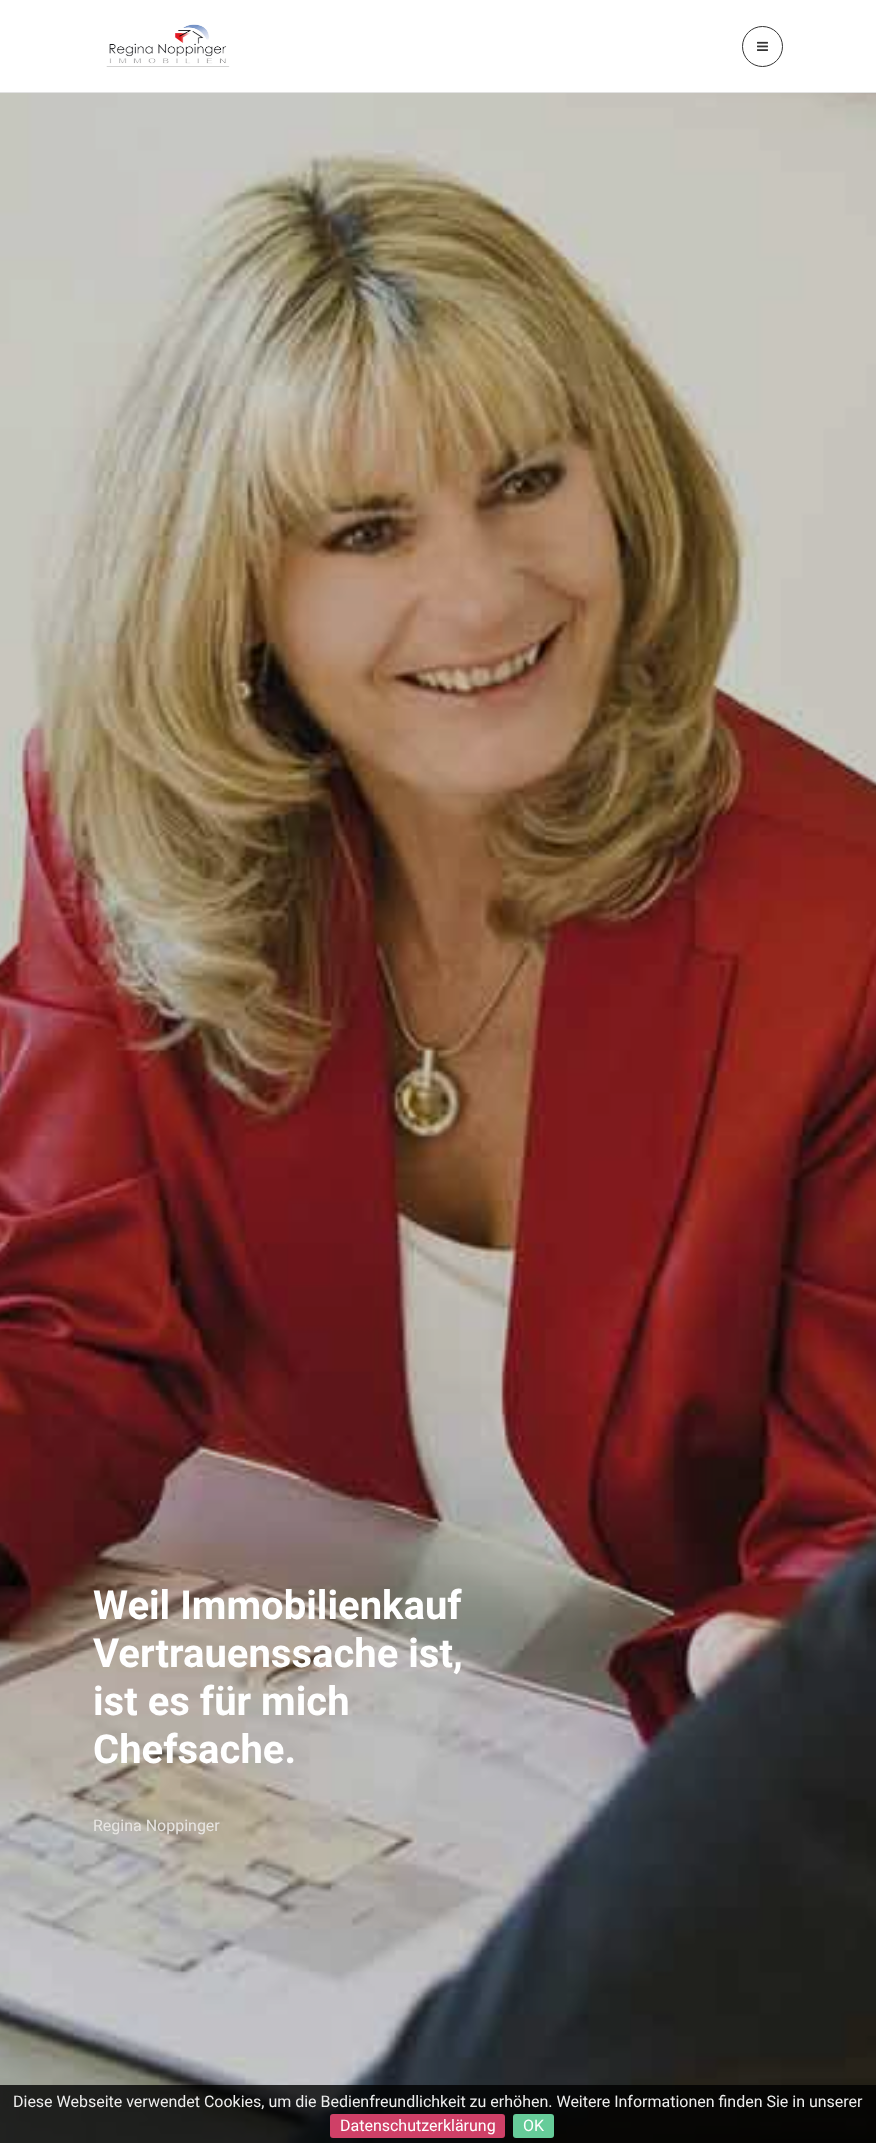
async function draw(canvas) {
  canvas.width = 876
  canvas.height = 2143
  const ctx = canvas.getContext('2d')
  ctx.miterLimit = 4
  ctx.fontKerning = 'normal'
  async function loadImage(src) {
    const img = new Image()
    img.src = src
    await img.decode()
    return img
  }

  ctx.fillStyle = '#fff'
  ctx.fillRect(0, 0, 876, 2143)
  ctx.fillStyle = '#e2e2e2'
  ctx.fillRect(0, 92, 876, 1)
  ctx.drawImage(await loadImage('image0.png'), 106, 24, 124, 43)
  ctx.beginPath()
  ctx.arc(762.5, 46.5, 20, 0, 2 * Math.PI)
  ctx.strokeStyle = '#333'
  ctx.stroke()
  ctx.drawImage(await loadImage('image1.png'), 757, 41, 11, 10)
  ctx.drawImage(await loadImage('image2.png'), 0, 93, 876, 2050)
  ctx.font = 'bold 40px Roboto'
  ctx.fillStyle = '#fff'
  ctx.fillText('Weil Immobilienkauf', 93, 1619)
  ctx.fillText('Vertrauenssache ist,', 93, 1667)
  ctx.fillText('ist es für mich', 93, 1715)
  ctx.fillText('Chefsache.', 93, 1763)
  ctx.font = '16px Roboto'
  ctx.fillStyle = '#e7e5e2'
  ctx.fillText('Regina Noppinger', 93, 1831)
  ctx.fillStyle = '#000000cc'
  ctx.fillRect(0, 2085, 876, 58)
  ctx.fillStyle = '#eee'
  ctx.fillText('Diese Webseite verwendet Cookies, um die Bedienfreundlichkeit zu erhöhen. Weitere Informationen finden Sie in unserer', 13, 2107)
  ctx.fillStyle = '#cf4067'
  ctx.beginPath()
  ctx.roundRect(330, 2114, 175, 24, 3)
  ctx.fill()
  ctx.fillStyle = '#fff'
  ctx.fillText('Datenschutzerklärung', 340, 2131)
  ctx.fillStyle = '#6c9'
  ctx.beginPath()
  ctx.roundRect(513, 2114, 41, 24, 3)
  ctx.fill()
  ctx.fillStyle = '#fff'
  ctx.fillText('OK', 523, 2131)
}

draw(document.querySelector('canvas'))
